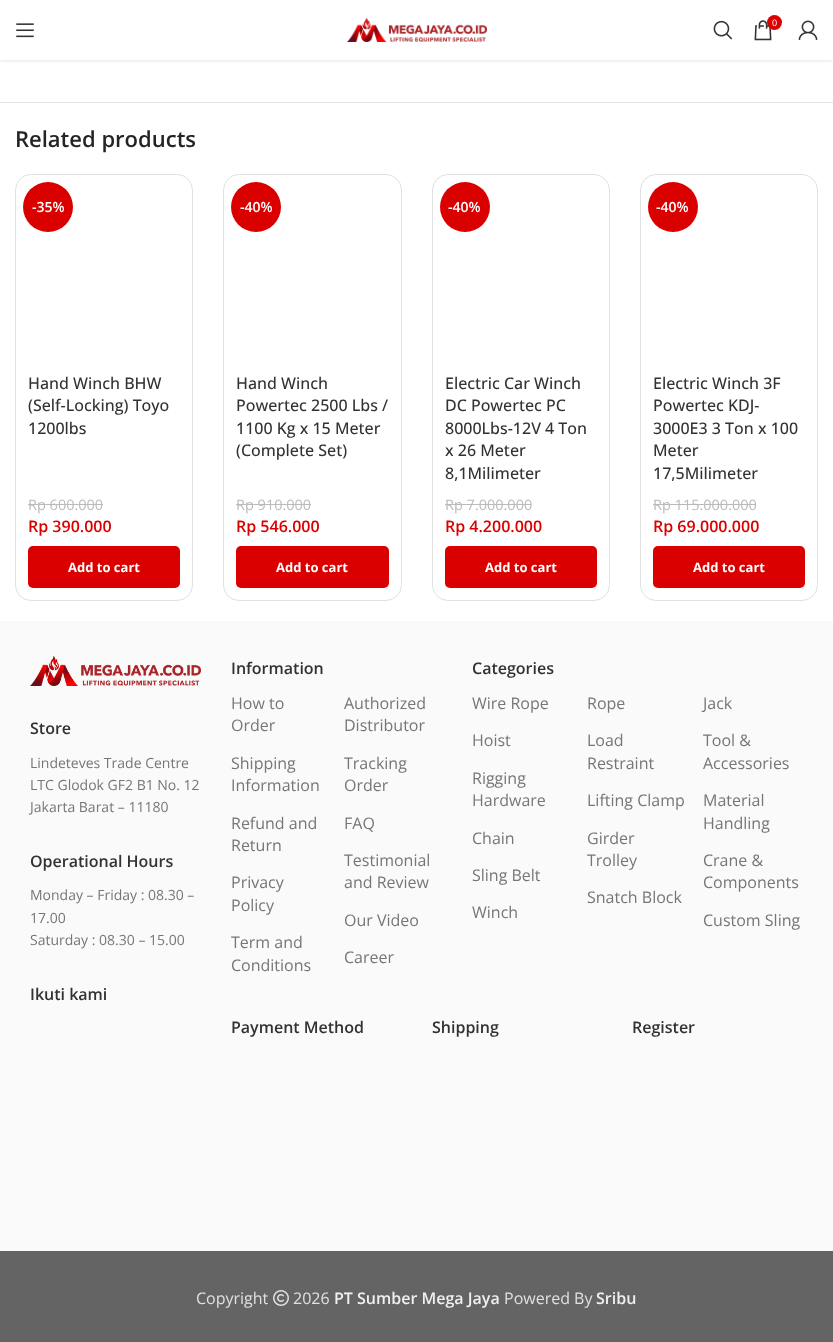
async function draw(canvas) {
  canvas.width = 833
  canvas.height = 1342
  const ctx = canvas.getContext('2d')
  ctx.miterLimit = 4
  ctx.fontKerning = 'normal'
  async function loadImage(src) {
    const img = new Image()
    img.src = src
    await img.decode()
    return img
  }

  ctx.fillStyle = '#fff'
  ctx.fillRect(0, 0, 833, 1342)
  ctx.fillStyle = '#0000001a'
  ctx.filter = 'blur(1.5px)'
  ctx.beginPath()
  ctx.rect(0, 1, 833, 60)
  ctx.fill()
  ctx.filter = 'none'
  ctx.fillStyle = '#fff'
  ctx.fillRect(0, 0, 833, 60)
  ctx.drawImage(await loadImage('image0.png'), 16, 23, 18, 15)
  ctx.drawImage(await loadImage('image1.png'), 347, 18, 140, 24)
  ctx.drawImage(await loadImage('image2.png'), 713, 20, 20, 20)
  ctx.drawImage(await loadImage('image3.png'), 754, 20, 18, 21)
  ctx.fillStyle = '#db0000'
  ctx.beginPath()
  ctx.arc(774.5, 22.5, 7.5, 0, 2 * Math.PI)
  ctx.fill()
  ctx.font = '9px Open Sans'
  ctx.fillStyle = '#fff'
  ctx.fillText('0', 772, 26)
  ctx.drawImage(await loadImage('image4.png'), 798, 20, 20, 20)
  ctx.fillStyle = '#e4e4e4'
  ctx.fillRect(0, 102, 833, 1)
  ctx.font = '600 22px Open Sans'
  ctx.fillStyle = '#242424'
  ctx.fillText('Related products', 15, 147)
  ctx.beginPath()
  ctx.roundRect(15.5, 174.5, 177, 426, 15.5)
  ctx.strokeStyle = '#e0e1e0'
  ctx.stroke()
  ctx.fillStyle = '#db0000'
  ctx.beginPath()
  ctx.arc(48, 207, 25, 0, 2 * Math.PI)
  ctx.fill()
  ctx.font = '600 14px Open Sans'
  ctx.fillStyle = '#fff'
  ctx.fillText('-35%', 32, 212)
  ctx.font = '500 16px Open Sans'
  ctx.fillStyle = '#323232'
  ctx.fillText('Hand Winch BHW', 28, 389)
  ctx.fillText('(Self-Locking) Toyo', 28, 411)
  ctx.fillText('1200lbs', 28, 434)
  ctx.font = '14.5px Open Sans'
  ctx.fillStyle = '#bbb'
  ctx.fillText('Rp 600.000', 28, 510)
  ctx.fillRect(28, 504, 75, 1)
  ctx.font = '600 16px Open Sans'
  ctx.fillStyle = '#db0000'
  ctx.fillText('Rp 390.000', 28, 532)
  ctx.beginPath()
  ctx.roundRect(28, 546, 152, 42, 5)
  ctx.fill()
  ctx.font = 'bold 13px Open Sans'
  ctx.fillStyle = '#fff'
  ctx.fillText('Add to cart', 68, 572)
  ctx.beginPath()
  ctx.roundRect(223.5, 174.5, 178, 426, 15.5)
  ctx.stroke()
  ctx.fillStyle = '#db0000'
  ctx.beginPath()
  ctx.arc(256, 207, 25, 0, 2 * Math.PI)
  ctx.fill()
  ctx.font = '600 14px Open Sans'
  ctx.fillStyle = '#fff'
  ctx.fillText('-40%', 240, 212)
  ctx.font = '500 16px Open Sans'
  ctx.fillStyle = '#323232'
  ctx.fillText('Hand Winch', 236, 389)
  ctx.fillText('Powertec 2500 Lbs /', 236, 411)
  ctx.fillText('1100 Kg x 15 Meter', 236, 434)
  ctx.fillText('(Complete Set)', 236, 456)
  ctx.font = '14.5px Open Sans'
  ctx.fillStyle = '#bbb'
  ctx.fillText('Rp 910.000', 236, 510)
  ctx.fillRect(236, 504, 75, 1)
  ctx.font = '600 16px Open Sans'
  ctx.fillStyle = '#db0000'
  ctx.fillText('Rp 546.000', 236, 532)
  ctx.beginPath()
  ctx.roundRect(236, 546, 153, 42, 5)
  ctx.fill()
  ctx.font = 'bold 13px Open Sans'
  ctx.fillStyle = '#fff'
  ctx.fillText('Add to cart', 276, 572)
  ctx.beginPath()
  ctx.roundRect(432.5, 174.5, 177, 426, 15.5)
  ctx.stroke()
  ctx.fillStyle = '#db0000'
  ctx.beginPath()
  ctx.arc(465, 207, 25, 0, 2 * Math.PI)
  ctx.fill()
  ctx.font = '600 14px Open Sans'
  ctx.fillStyle = '#fff'
  ctx.fillText('-40%', 448, 212)
  ctx.font = '500 16px Open Sans'
  ctx.fillStyle = '#323232'
  ctx.fillText('Electric Car Winch', 445, 389)
  ctx.fillText('DC Powertec PC', 445, 411)
  ctx.fillText('8000Lbs-12V 4 Ton', 445, 434)
  ctx.fillText('x 26 Meter', 445, 456)
  ctx.fillText('8,1Milimeter', 445, 479)
  ctx.font = '14.5px Open Sans'
  ctx.fillStyle = '#bbb'
  ctx.fillText('Rp 7.000.000', 445, 510)
  ctx.fillRect(445, 504, 86, 1)
  ctx.font = '600 16px Open Sans'
  ctx.fillStyle = '#db0000'
  ctx.fillText('Rp 4.200.000', 445, 532)
  ctx.beginPath()
  ctx.roundRect(445, 546, 152, 42, 5)
  ctx.fill()
  ctx.font = 'bold 13px Open Sans'
  ctx.fillStyle = '#fff'
  ctx.fillText('Add to cart', 485, 572)
  ctx.beginPath()
  ctx.roundRect(640.5, 174.5, 177, 426, 15.5)
  ctx.stroke()
  ctx.fillStyle = '#db0000'
  ctx.beginPath()
  ctx.arc(673, 207, 25, 0, 2 * Math.PI)
  ctx.fill()
  ctx.font = '600 14px Open Sans'
  ctx.fillStyle = '#fff'
  ctx.fillText('-40%', 656, 212)
  ctx.font = '500 16px Open Sans'
  ctx.fillStyle = '#323232'
  ctx.fillText('Electric Winch 3F', 653, 389)
  ctx.fillText('Powertec KDJ-', 653, 411)
  ctx.fillText('3000E3 3 Ton x 100', 653, 434)
  ctx.fillText('Meter', 653, 456)
  ctx.fillText('17,5Milimeter', 653, 479)
  ctx.font = '14.5px Open Sans'
  ctx.fillStyle = '#bbb'
  ctx.fillText('Rp 115.000.000', 653, 510)
  ctx.fillRect(653, 504, 103, 1)
  ctx.font = '600 16px Open Sans'
  ctx.fillStyle = '#db0000'
  ctx.fillText('Rp 69.000.000', 653, 532)
  ctx.beginPath()
  ctx.roundRect(653, 546, 152, 42, 5)
  ctx.fill()
  ctx.font = 'bold 13px Open Sans'
  ctx.fillStyle = '#fff'
  ctx.fillText('Add to cart', 693, 572)
  ctx.fillStyle = '#f9faf9'
  ctx.fillRect(0, 621, 833, 630)
  ctx.drawImage(await loadImage('image5.png'), 30, 656, 171, 30)
  ctx.font = '600 16px Open Sans'
  ctx.fillStyle = '#323232'
  ctx.fillText('Store', 30, 734)
  ctx.font = '14px Open Sans'
  ctx.fillStyle = '#767676'
  ctx.fillText('Lindeteves Trade Centre', 30, 768)
  ctx.fillText('LTC Glodok GF2 B1 No. 12', 30, 790)
  ctx.fillText('Jakarta Barat – 11180', 30, 812)
  ctx.font = '600 16px Open Sans'
  ctx.fillStyle = '#323232'
  ctx.fillText('Operational Hours', 30, 867)
  ctx.font = '14px Open Sans'
  ctx.fillStyle = '#767676'
  ctx.fillText('Monday – Friday : 08.30 –', 30, 900)
  ctx.fillText('17.00', 30, 923)
  ctx.fillText('Saturday : 08.30 – 15.00', 30, 945)
  ctx.font = '600 16px Open Sans'
  ctx.fillStyle = '#323232'
  ctx.fillText('Ikuti kami', 30, 1000)
  ctx.fillText('Information', 231, 674)
  ctx.font = '16px Open Sans'
  ctx.fillStyle = '#767676'
  ctx.fillText('How to', 231, 709)
  ctx.fillText('Order', 231, 731)
  ctx.fillText('Authorized', 344, 709)
  ctx.fillText('Distributor', 344, 731)
  ctx.fillText('Shipping', 231, 769)
  ctx.fillText('Information', 231, 791)
  ctx.fillText('Tracking', 344, 769)
  ctx.fillText('Order', 344, 791)
  ctx.fillText('Refund and', 231, 829)
  ctx.fillText('Return', 231, 851)
  ctx.fillText('FAQ', 344, 829)
  ctx.fillText('Testimonial', 344, 866)
  ctx.fillText('and Review', 344, 888)
  ctx.fillText('Privacy', 231, 888)
  ctx.fillText('Policy', 231, 911)
  ctx.fillText('Our Video', 344, 926)
  ctx.fillText('Term and', 231, 948)
  ctx.fillText('Conditions', 231, 971)
  ctx.fillText('Career', 344, 963)
  ctx.font = '600 16px Open Sans'
  ctx.fillStyle = '#323232'
  ctx.fillText('Categories', 472, 674)
  ctx.font = '16px Open Sans'
  ctx.fillStyle = '#767676'
  ctx.fillText('Wire Rope', 472, 709)
  ctx.fillText('Rope', 587, 709)
  ctx.fillText('Jack', 703, 709)
  ctx.fillText('Hoist', 472, 746)
  ctx.fillText('Load', 587, 746)
  ctx.fillText('Restraint', 587, 769)
  ctx.fillText('Tool &', 703, 746)
  ctx.fillText('Accessories', 703, 769)
  ctx.fillText('Rigging', 472, 784)
  ctx.fillText('Hardware', 472, 806)
  ctx.fillText('Lifting Clamp', 587, 806)
  ctx.fillText('Material', 703, 806)
  ctx.fillText('Handling', 703, 829)
  ctx.fillText('Chain', 472, 844)
  ctx.fillText('Girder', 587, 844)
  ctx.fillText('Trolley', 587, 866)
  ctx.fillText('Crane &', 703, 866)
  ctx.fillText('Components', 703, 888)
  ctx.fillText('Sling Belt', 472, 881)
  ctx.fillText('Snatch Block', 587, 903)
  ctx.fillText('Winch', 472, 918)
  ctx.fillText('Custom Sling', 703, 926)
  ctx.font = '600 16px Open Sans'
  ctx.fillStyle = '#323232'
  ctx.fillText('Payment Method', 231, 1033)
  ctx.fillText('Shipping', 432, 1033)
  ctx.fillText('Register', 632, 1033)
  ctx.fillStyle = '#646464'
  ctx.fillRect(0, 1251, 833, 91)
  ctx.font = '16px Open Sans'
  ctx.fillStyle = '#e0e0e0'
  ctx.fillText('Copyright', 196, 1304)
  ctx.drawImage(await loadImage('image6.png'), 273, 1290, 16, 16)
  ctx.fillText('2026', 293, 1304)
  ctx.font = '600 16px Open Sans'
  ctx.fillStyle = '#f0f0f0'
  ctx.fillText('PT Sumber Mega Jaya', 334, 1304)
  ctx.font = '16px Open Sans'
  ctx.fillStyle = '#e0e0e0'
  ctx.fillText('Powered By', 504, 1304)
  ctx.font = '600 16px Open Sans'
  ctx.fillStyle = '#f0f0f0'
  ctx.fillText('Sribu', 596, 1304)
}

draw(document.querySelector('canvas'))
